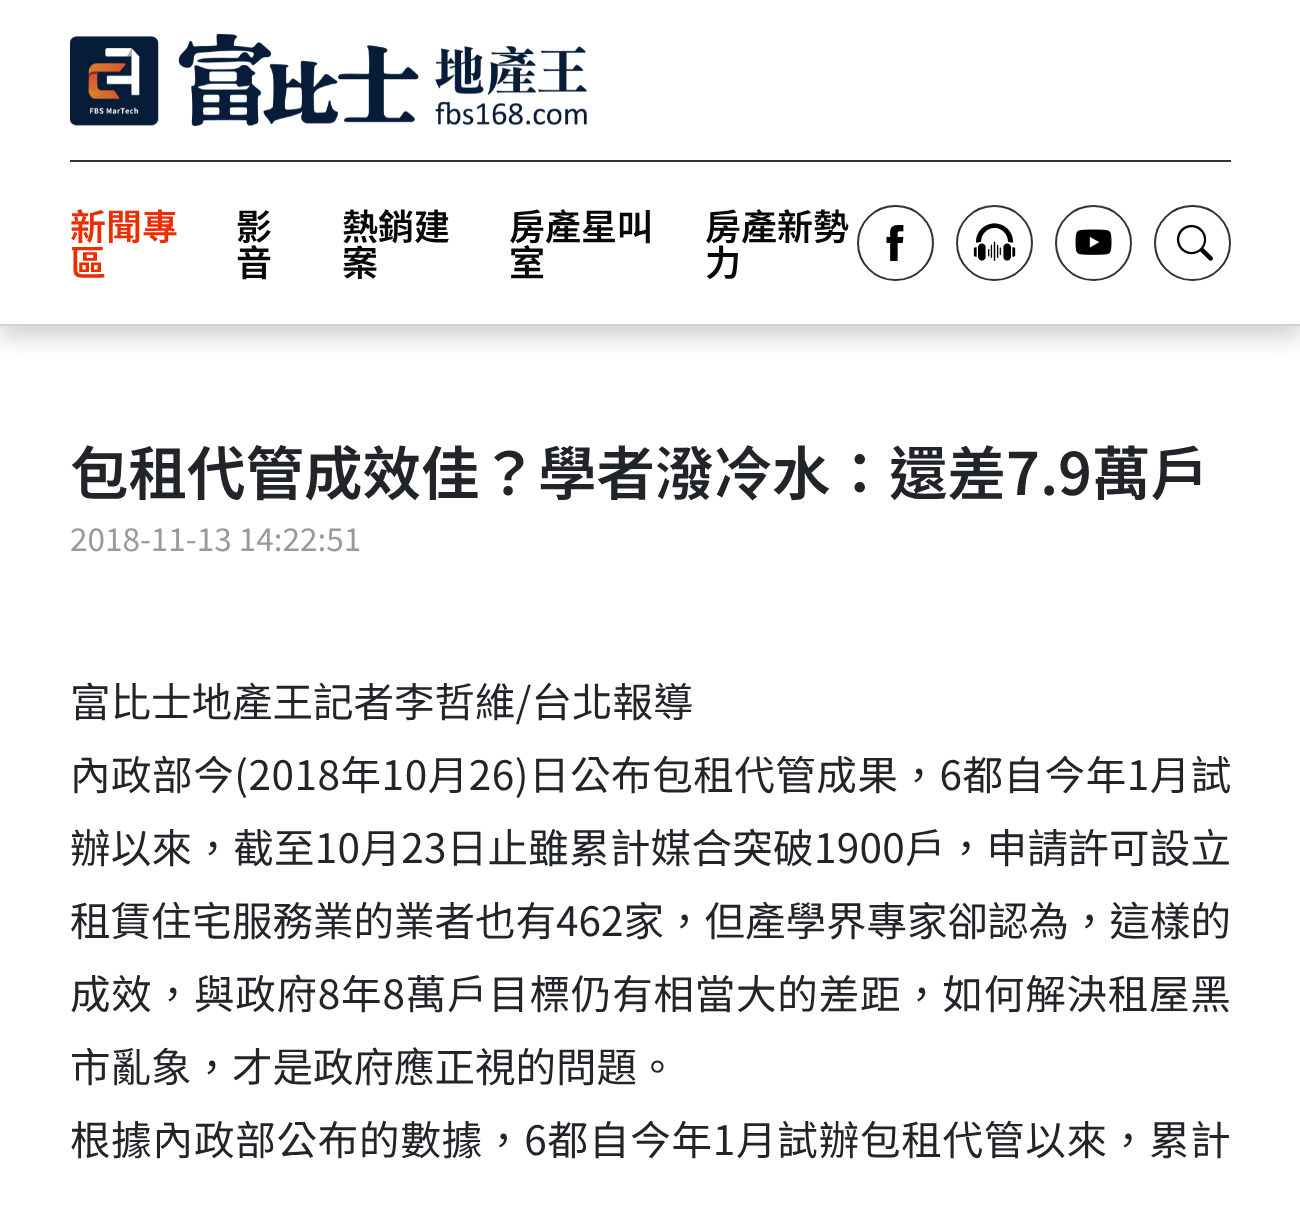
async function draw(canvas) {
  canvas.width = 1300
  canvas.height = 1214
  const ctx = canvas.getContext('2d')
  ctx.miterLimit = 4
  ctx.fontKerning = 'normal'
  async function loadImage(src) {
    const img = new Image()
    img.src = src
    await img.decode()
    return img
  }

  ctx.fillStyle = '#fff'
  ctx.fillRect(0, 0, 1300, 1214)
  ctx.save()
  ctx.beginPath()
  ctx.rect(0, 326, 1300, 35)
  ctx.clip()
  ctx.fillStyle = '#d2d2d2'
  ctx.filter = 'blur(11px)'
  ctx.beginPath()
  ctx.rect(0, 11, 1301, 327)
  ctx.fill()
  ctx.filter = 'none'
  ctx.restore()
  ctx.fillStyle = '#d2d2d2'
  ctx.fillRect(0, 324, 1300, 2)
  ctx.drawImage(await loadImage('image0.png'), 70, 34, 517, 92)
  ctx.fillStyle = '#333'
  ctx.fillRect(70, 160, 1161, 2)
  ctx.font = '600 36px Noto Sans TC'
  ctx.fillStyle = '#ec2d00'
  ctx.fillText('新聞專', 70, 240)
  ctx.fillText('區', 70, 276)
  ctx.fillStyle = '#080808'
  ctx.fillText('影', 236, 240)
  ctx.fillText('音', 236, 276)
  ctx.fillText('熱銷建', 342, 240)
  ctx.fillText('案', 342, 276)
  ctx.fillText('房產星叫', 509, 240)
  ctx.fillText('室', 509, 276)
  ctx.fillText('房產新勢', 705, 240)
  ctx.fillText('力', 705, 276)
  ctx.beginPath()
  ctx.roundRect(858, 206, 75, 74, 37)
  ctx.strokeStyle = '#333'
  ctx.lineWidth = 2
  ctx.stroke()
  ctx.drawImage(await loadImage('image1.png'), 886, 225, 18, 36)
  ctx.beginPath()
  ctx.roundRect(957, 206, 75, 74, 37)
  ctx.stroke()
  ctx.drawImage(await loadImage('image2.png'), 973, 223, 43, 38)
  ctx.beginPath()
  ctx.roundRect(1056, 206, 75, 74, 37)
  ctx.stroke()
  ctx.drawImage(await loadImage('image3.png'), 1075, 229, 37, 26)
  ctx.beginPath()
  ctx.roundRect(1155, 206, 75, 74, 37)
  ctx.stroke()
  ctx.drawImage(await loadImage('image4.png'), 1176, 224, 37, 37)
  ctx.font = '600 58.5px Noto Sans TC'
  ctx.fillStyle = '#212529'
  ctx.fillText('包租代管成效佳？學者潑冷水：還差7.9萬戶', 70, 495)
  ctx.font = '31.5px Noto Sans TC'
  ctx.fillStyle = '#9a9999'
  ctx.fillText('2018-11-13 14:22:51', 70, 551)
  ctx.font = '40.5px Noto Sans TC'
  ctx.fillStyle = '#212529'
  ctx.fillText('富比士地產王記者李哲維/台北報導', 70, 717)
  ctx.letterSpacing = '0.55px'
  ctx.fillText('內政部今(2018年10月26)日公布包租代管成果，6都自今年1月試', 70, 790)
  ctx.letterSpacing = '0.3px'
  ctx.fillText('辦以來，截至10月23日止雖累計媒合突破1900戶，申請許可設立', 70, 863)
  ctx.letterSpacing = '0px'
  ctx.fillText('租賃住宅服務業的業者也有462家，但產學界專家卻認為，這樣的', 70, 936)
  ctx.letterSpacing = '0.8px'
  ctx.fillText('成效，與政府8年8萬戶目標仍有相當大的差距，如何解決租屋黑', 70, 1009)
  ctx.letterSpacing = '0px'
  ctx.fillText('市亂象，才是政府應正視的問題。', 70, 1082)
  ctx.letterSpacing = '0.8px'
  ctx.fillText('根據內政部公布的數據，6都自今年1月試辦包租代管以來，累計', 70, 1155)
}

draw(document.querySelector('canvas'))
